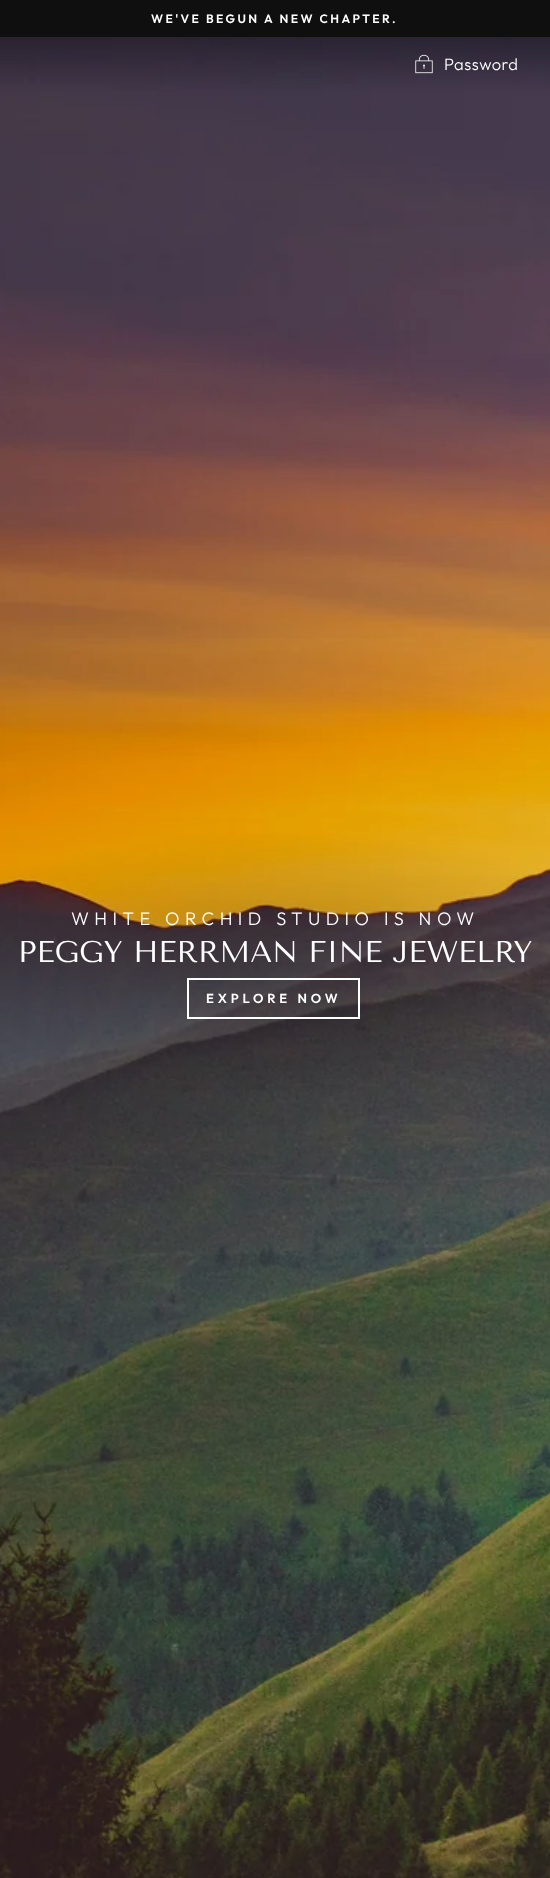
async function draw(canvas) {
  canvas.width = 550
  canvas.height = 1878
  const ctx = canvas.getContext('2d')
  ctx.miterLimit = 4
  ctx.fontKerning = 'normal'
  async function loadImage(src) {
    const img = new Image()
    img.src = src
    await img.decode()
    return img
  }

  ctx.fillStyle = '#0f0f0f'
  ctx.fillRect(0, 0, 550, 1878)
  ctx.letterSpacing = '2.4px'
  ctx.font = '600 12.15px Outfit'
  ctx.fillStyle = '#fff'
  ctx.fillText('WE\'VE BEGUN A NEW CHAPTER.', 151, 23)
  ctx.drawImage(await loadImage('image1.png'), 0, 37, 550, 1841)
  ctx.drawImage(await loadImage('image0.png'), 415, 54, 18, 20)
  ctx.letterSpacing = '0.5px'
  ctx.font = '300 16.5px Outfit'
  ctx.fillText('Password', 444, 70)
  ctx.letterSpacing = '5.45px'
  ctx.font = '300 18.25px Outfit'
  ctx.fillText('WHITE ORCHID STUDIO IS NOW', 71, 925)
  ctx.letterSpacing = '0px'
  ctx.font = '30px Tenor Sans'
  ctx.fillText('PEGGY HERRMAN FINE JEWELRY', 18, 962)
  ctx.strokeStyle = '#fff'
  ctx.lineWidth = 2
  ctx.strokeRect(188, 979, 171, 39)
  ctx.letterSpacing = '3.9px'
  ctx.font = '600 13px Outfit'
  ctx.fillText('EXPLORE NOW', 206, 1003)
}

draw(document.querySelector('canvas'))
